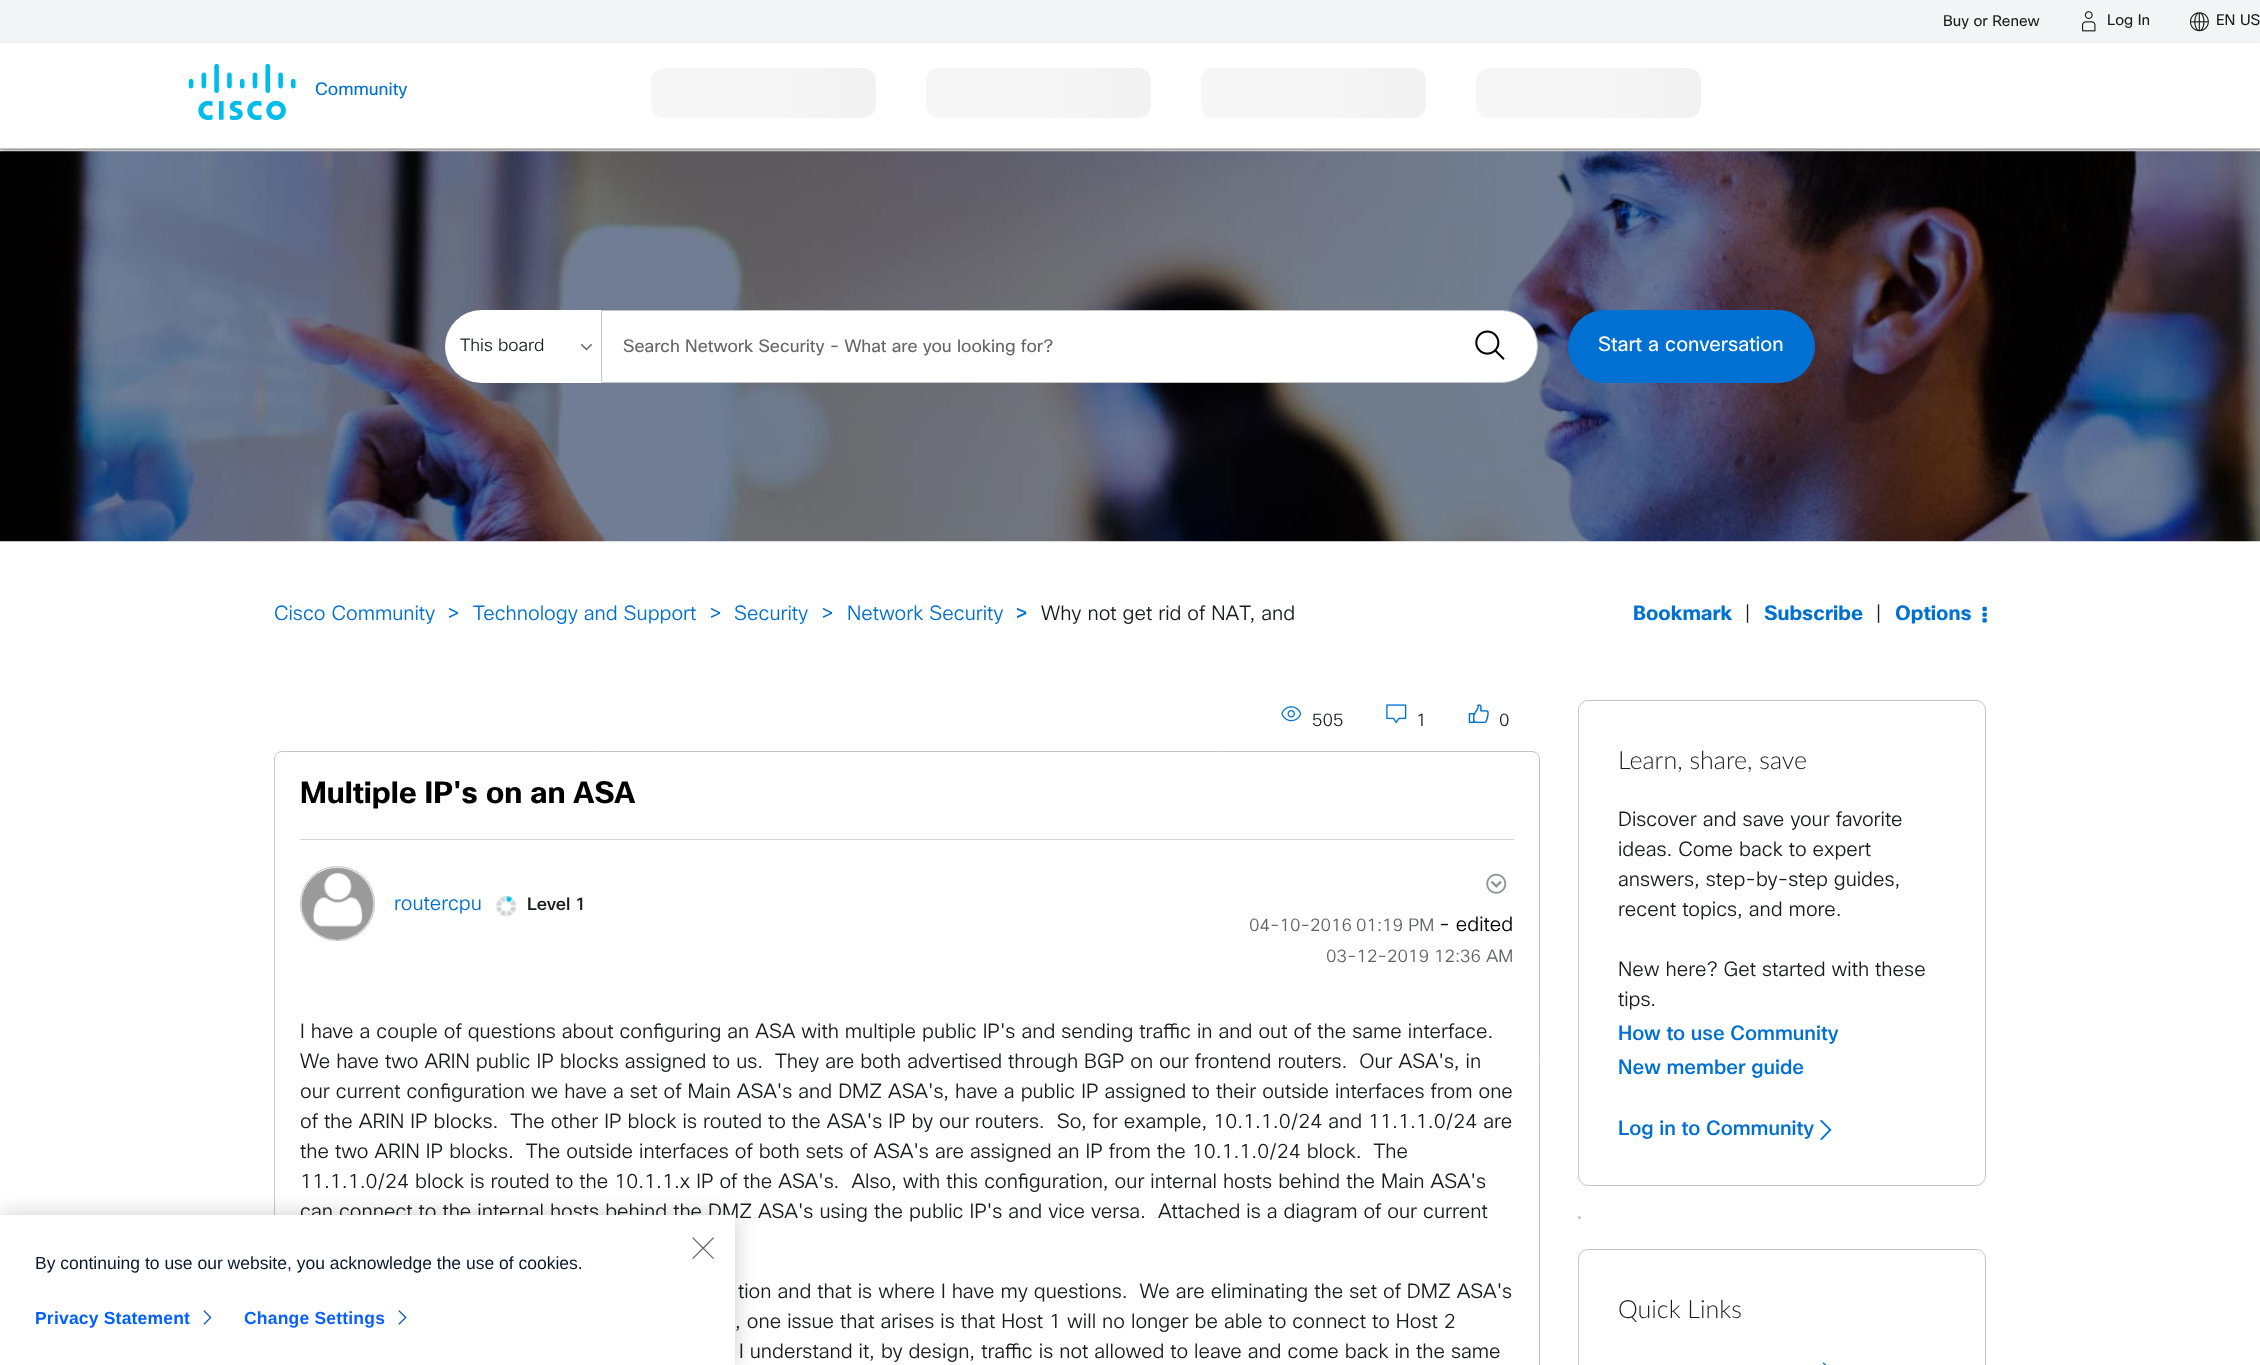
async function draw(canvas) {
  canvas.width = 2260
  canvas.height = 1365
  const ctx = canvas.getContext('2d')
  ctx.miterLimit = 4
  ctx.fontKerning = 'normal'
  async function loadImage(src) {
    const img = new Image()
    img.src = src
    await img.decode()
    return img
  }
  let gradient

  ctx.fillStyle = '#fff'
  ctx.fillRect(0, 0, 2260, 1365)
  ctx.fillStyle = '#00000040'
  ctx.filter = 'blur(2.5px)'
  ctx.beginPath()
  ctx.rect(1, 4, 2258, 146)
  ctx.fill()
  ctx.filter = 'none'
  ctx.fillStyle = '#c3c4c5'
  ctx.fillRect(0, 149, 2260, 1)
  ctx.fillStyle = '#0000001f'
  ctx.filter = 'blur(3px)'
  ctx.beginPath()
  ctx.rect(0, 3, 2260, 148)
  ctx.fill()
  ctx.filter = 'none'
  ctx.fillStyle = '#f4f5f6'
  ctx.fillRect(0, 0, 2260, 43)
  ctx.font = '15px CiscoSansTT'
  ctx.fillStyle = '#1b1c1d'
  ctx.fillText('Buy or Renew', 1943, 26)
  ctx.drawImage(await loadImage('image0.png'), 2082, 11, 14, 21)
  ctx.fillText('Log In', 2107, 25)
  ctx.drawImage(await loadImage('image1.png'), 2190, 12, 19, 20)
  ctx.fillText('EN US', 2216, 25)
  ctx.fillStyle = '#0000001f'
  ctx.filter = 'blur(3px)'
  ctx.beginPath()
  ctx.rect(0, 45, 2260, 106)
  ctx.fill()
  ctx.filter = 'none'
  ctx.fillStyle = '#fff'
  ctx.fillRect(0, 43, 2260, 105)
  ctx.fillStyle = '#c3c4c5'
  ctx.fillRect(0, 148, 2260, 1)
  ctx.drawImage(await loadImage('image2.png'), 188, 64, 108, 56)
  ctx.font = '17.5px CiscoSansTT'
  ctx.fillStyle = '#0070d2'
  ctx.fillText('Community', 315, 95)
  gradient = ctx.createLinearGradient(651, 93, 2151, 92)
  gradient.addColorStop(0.08, '#f6f6f6')
  gradient.addColorStop(0.18, '#f0f0f0')
  gradient.addColorStop(0.33, '#f6f6f6')
  ctx.fillStyle = gradient
  ctx.beginPath()
  ctx.roundRect(651, 68, 225, 50, 13)
  ctx.fill()
  gradient = ctx.createLinearGradient(926, 93, 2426, 92)
  gradient.addColorStop(0.08, '#f6f6f6')
  gradient.addColorStop(0.18, '#f0f0f0')
  gradient.addColorStop(0.33, '#f6f6f6')
  ctx.fillStyle = gradient
  ctx.beginPath()
  ctx.roundRect(926, 68, 225, 50, 13)
  ctx.fill()
  gradient = ctx.createLinearGradient(1201, 93, 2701, 92)
  gradient.addColorStop(0.08, '#f6f6f6')
  gradient.addColorStop(0.18, '#f0f0f0')
  gradient.addColorStop(0.33, '#f6f6f6')
  ctx.fillStyle = gradient
  ctx.beginPath()
  ctx.roundRect(1201, 68, 225, 50, 13)
  ctx.fill()
  gradient = ctx.createLinearGradient(1476, 93, 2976, 92)
  gradient.addColorStop(0.08, '#f6f6f6')
  gradient.addColorStop(0.18, '#f0f0f0')
  gradient.addColorStop(0.33, '#f6f6f6')
  ctx.fillStyle = gradient
  ctx.beginPath()
  ctx.roundRect(1476, 68, 225, 50, 13)
  ctx.fill()
  ctx.drawImage(await loadImage('image3.png'), 0, 151, 2260, 391)
  ctx.fillStyle = '#fff'
  ctx.beginPath()
  ctx.roundRect(445, 310, 163, 73, [36.5, 0, 0, 36.5])
  ctx.fill()
  ctx.font = '300 17.5px CiscoSansTT'
  ctx.fillStyle = '#212529'
  ctx.fillText('This board', 460, 351)
  ctx.drawImage(await loadImage('image4.png'), 580, 344, 12, 7)
  ctx.fillStyle = '#fff'
  ctx.beginPath()
  ctx.roundRect(601.5, 310.5, 936, 72, [0, 36, 36, 0])
  ctx.fill()
  ctx.strokeStyle = '#c3c4c5'
  ctx.stroke()
  ctx.font = '17.5px CiscoSansTT'
  ctx.fillStyle = '#666'
  ctx.fillText('Search Network Security - What are you looking for?', 623, 352)
  ctx.drawImage(await loadImage('image5.png'), 1475, 330, 30, 30)
  ctx.fillStyle = '#0070d2'
  ctx.beginPath()
  ctx.roundRect(1568.5, 310.5, 246, 72, 36)
  ctx.fill()
  ctx.strokeStyle = '#0070d2'
  ctx.stroke()
  ctx.font = '20px CiscoSansTT'
  ctx.fillStyle = '#fff'
  ctx.fillText('Start a conversation', 1598, 351)
  ctx.font = '300 20px CiscoSansTT'
  ctx.fillStyle = '#0070d2'
  ctx.fillText('Cisco Community', 274, 620)
  ctx.font = '300 22px CiscoSansTT'
  ctx.fillText('>', 447, 620)
  ctx.font = '300 20px CiscoSansTT'
  ctx.fillText('Technology and Support', 473, 620)
  ctx.font = '300 22px CiscoSansTT'
  ctx.fillText('>', 709, 620)
  ctx.font = '300 20px CiscoSansTT'
  ctx.fillText('Security', 734, 620)
  ctx.font = '300 22px CiscoSansTT'
  ctx.fillText('>', 821, 620)
  ctx.font = '300 20px CiscoSansTT'
  ctx.fillText('Network Security', 847, 620)
  ctx.font = '22px CiscoSansTT'
  ctx.fillText('>', 1015, 620)
  ctx.font = '300 20px CiscoSansTT'
  ctx.fillStyle = '#1b1c1d'
  ctx.fillText('Why not get rid of NAT, and', 1041, 620)
  ctx.font = 'bold 20px CiscoSansTT'
  ctx.fillStyle = '#0070d2'
  ctx.fillText('Bookmark', 1633, 620)
  ctx.font = '300 20px CiscoSansTT'
  ctx.fillStyle = '#1b1c1d'
  ctx.fillText('|', 1744, 620)
  ctx.font = 'bold 20px CiscoSansTT'
  ctx.fillStyle = '#0070d2'
  ctx.fillText('Subscribe', 1764, 620)
  ctx.font = '300 20px CiscoSansTT'
  ctx.fillStyle = '#1b1c1d'
  ctx.fillText('|', 1875, 620)
  ctx.font = 'bold 20px CiscoSansTT'
  ctx.fillStyle = '#0070d2'
  ctx.fillText('Options', 1895, 620)
  ctx.drawImage(await loadImage('image6.png'), 1982, 606, 5, 17)
  ctx.drawImage(await loadImage('image7.png'), 1281, 706, 21, 16)
  ctx.font = '300 17.5px CiscoSansTT'
  ctx.fillStyle = '#1b1c1d'
  ctx.fillText('505', 1312, 726)
  ctx.drawImage(await loadImage('image8.png'), 1386, 704, 21, 20)
  ctx.fillText('1', 1416, 726)
  ctx.drawImage(await loadImage('image9.png'), 1468, 704, 21, 20)
  ctx.fillText('0', 1499, 726)
  ctx.beginPath()
  ctx.roundRect(274.5, 751.5, 1265, 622, 7.5)
  ctx.strokeStyle = '#c3c4c5'
  ctx.stroke()
  ctx.fillStyle = '#d6d6d6'
  ctx.fillRect(300, 839, 1214, 1)
  ctx.font = 'bold 30px CiscoSansTT'
  ctx.fillStyle = '#000'
  ctx.fillText('Multiple IP\'s on an ASA', 300, 803)
  ctx.save()
  ctx.beginPath()
  ctx.moveTo(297, 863)
  ctx.lineTo(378, 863)
  ctx.lineTo(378, 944)
  ctx.lineTo(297, 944)
  ctx.closePath()
  ctx.moveTo(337.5, 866)
  ctx.bezierCurveTo(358, 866, 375, 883, 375, 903.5)
  ctx.bezierCurveTo(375, 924, 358, 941, 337.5, 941)
  ctx.bezierCurveTo(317, 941, 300, 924, 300, 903.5)
  ctx.bezierCurveTo(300, 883, 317, 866, 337.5, 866)
  ctx.closePath()
  ctx.clip('evenodd')
  ctx.fillStyle = '#c4c4c4'
  ctx.filter = 'blur(0.5px)'
  ctx.beginPath()
  ctx.roundRect(300, 866, 75, 75, 37.5)
  ctx.fill()
  ctx.filter = 'none'
  ctx.restore()
  ctx.beginPath()
  ctx.arc(337.5, 903.5, 37, 0, 2 * Math.PI)
  ctx.stroke()
  ctx.drawImage(await loadImage('image10.png'), 301, 867, 73, 73)
  ctx.font = '300 20px CiscoSansTT'
  ctx.fillStyle = '#0070d2'
  ctx.fillText('routercpu', 394, 910)
  ctx.drawImage(await loadImage('image11.png'), 496, 896, 21, 21)
  ctx.font = '500 17.5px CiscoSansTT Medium'
  ctx.fillStyle = '#1b1c1d'
  ctx.fillText('Level 1', 527, 910)
  ctx.drawImage(await loadImage('image12.png'), 1486, 873, 21, 21)
  ctx.font = '300 17.5px CiscoSansTT'
  ctx.fillStyle = '#606162'
  ctx.fillText('04-10-2016', 1249, 931)
  ctx.fillText('01:19 PM', 1356, 931)
  ctx.font = '300 20px CiscoSansTT'
  ctx.fillStyle = '#000'
  ctx.fillText('- edited', 1439, 931)
  ctx.font = '300 17.5px CiscoSansTT'
  ctx.fillStyle = '#606162'
  ctx.fillText('03-12-2019', 1326, 962)
  ctx.fillText('12:36 AM', 1434, 962)
  ctx.font = '300 20px CiscoSansTT'
  ctx.fillStyle = '#1b1c1d'
  ctx.fillText('I have a couple of questions about configuring an ASA with multiple public IP\'s and sending traffic in and out of the same interface.', 300, 1038)
  ctx.fillText('We have two ARIN public IP blocks assigned to us.  They are both advertised through BGP on our frontend routers.  Our ASA\'s, in', 300, 1068)
  ctx.fillText('our current configuration we have a set of Main ASA\'s and DMZ ASA\'s, have a public IP assigned to their outside interfaces from one', 300, 1098)
  ctx.fillText('of the ARIN IP blocks.  The other IP block is routed to the ASA\'s IP by our routers.  So, for example, 10.1.1.0/24 and 11.1.1.0/24 are', 300, 1128)
  ctx.fillText('the two ARIN IP blocks.  The outside interfaces of both sets of ASA\'s are assigned an IP from the 10.1.1.0/24 block.  The', 300, 1158)
  ctx.fillText('11.1.1.0/24 block is routed to the 10.1.1.x IP of the ASA\'s.  Also, with this configuration, our internal hosts behind the Main ASA\'s', 300, 1188)
  ctx.fillText('can connect to the internal hosts behind the DMZ ASA\'s using the public IP\'s and vice versa.  Attached is a diagram of our current', 300, 1218)
  ctx.fillText('tion and that is where I have my questions.  We are eliminating the set of DMZ ASA\'s', 738, 1298)
  ctx.fillText(', one issue that arises is that Host 1 will no longer be able to connect to Host 2', 735, 1328)
  ctx.fillText('I understand it, by design, traffic is not allowed to leave and come back in the same', 739, 1358)
  ctx.beginPath()
  ctx.roundRect(1578.5, 700.5, 407, 485, 9.5)
  ctx.stroke()
  ctx.font = '300 25px Lato'
  ctx.fillText('Learn, share, save', 1618, 769)
  ctx.font = '300 20px CiscoSansTT'
  ctx.fillText('Discover and save your favorite', 1618, 826)
  ctx.fillText('ideas. Come back to expert', 1618, 856)
  ctx.fillText('answers, step-by-step guides,', 1618, 886)
  ctx.fillText('recent topics, and more.', 1618, 916)
  ctx.fillText('New here? Get started with these', 1618, 976)
  ctx.fillText('tips.', 1618, 1006)
  ctx.font = '500 20px CiscoSansTT Medium'
  ctx.fillStyle = '#0070d2'
  ctx.fillText('How to use Community', 1618, 1040)
  ctx.fillText('New member guide', 1618, 1074)
  ctx.fillText('Log in to Community', 1618, 1135)
  ctx.drawImage(await loadImage('image13.png'), 1820, 1120, 12, 20)
  ctx.fillStyle = '#c3c4c5'
  ctx.beginPath()
  ctx.arc(1579.5, 1217.5, 1.5, 0, 2 * Math.PI)
  ctx.fill()
  ctx.beginPath()
  ctx.roundRect(1578.5, 1249.5, 407, 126, 9.5)
  ctx.stroke()
  ctx.font = '300 25px Lato'
  ctx.fillStyle = '#1b1c1d'
  ctx.fillText('Quick Links', 1618, 1318)
  ctx.drawImage(await loadImage('image14.png'), 1822, 1362, 5, 3)
  ctx.fillStyle = '#00000033'
  ctx.filter = 'blur(11px)'
  ctx.beginPath()
  ctx.rect(0, 1215, 735, 150)
  ctx.fill()
  ctx.filter = 'none'
  ctx.fillStyle = '#fff'
  ctx.fillRect(0, 1215, 735, 150)
  ctx.drawImage(await loadImage('image15.png'), 692, 1237, 22, 22)
  ctx.font = '17.5px Liberation Sans'
  ctx.fillStyle = '#07182d'
  ctx.fillText('By continuing to use our website, you acknowledge the use of cookies.', 35, 1269)
  ctx.letterSpacing = '0.2px'
  ctx.font = 'bold 17.5px Liberation Sans'
  ctx.fillStyle = '#0060ff'
  ctx.fillText('Privacy Statement', 35, 1324)
  ctx.drawImage(await loadImage('image16.png'), 203, 1310, 9, 15)
  ctx.fillStyle = '#0a60ff'
  ctx.fillText('Change Settings', 244, 1324)
  ctx.drawImage(await loadImage('image16.png'), 398, 1310, 9, 15)
}

draw(document.querySelector('canvas'))
